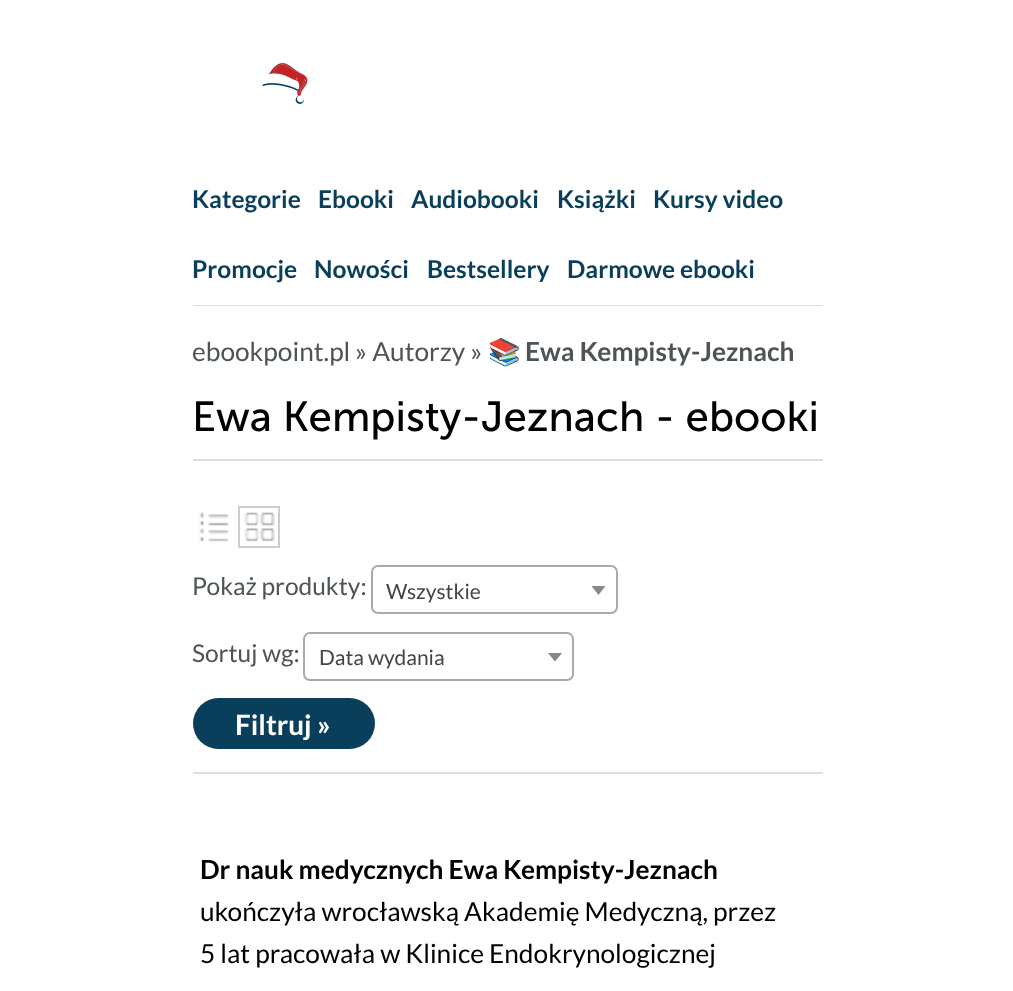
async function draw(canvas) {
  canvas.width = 1013
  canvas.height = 991
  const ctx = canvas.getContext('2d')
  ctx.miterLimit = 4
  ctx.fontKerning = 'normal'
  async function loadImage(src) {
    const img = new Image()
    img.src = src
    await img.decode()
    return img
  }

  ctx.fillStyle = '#fff'
  ctx.fillRect(0, 0, 1013, 991)
  ctx.drawImage(await loadImage('image0.png'), 262, 63, 46, 41)
  ctx.fillStyle = '#dfdfdf'
  ctx.fillRect(193, 305, 630, 1)
  ctx.font = 'bold 24.5px Lato'
  ctx.fillStyle = '#0a3f5c'
  ctx.fillText('Kategorie', 192, 208)
  ctx.fillText('Ebooki', 318, 208)
  ctx.fillText('Audiobooki', 411, 208)
  ctx.fillText('Książki', 557, 208)
  ctx.fillText('Kursy video', 653, 208)
  ctx.fillText('Promocje', 192, 278)
  ctx.fillText('Nowości', 314, 278)
  ctx.fillText('Bestsellery', 427, 278)
  ctx.fillText('Darmowe ebooki', 567, 278)
  ctx.save()
  ctx.beginPath()
  ctx.rect(193, 306, 630, 88)
  ctx.clip()
  ctx.font = '26.25px Lato'
  ctx.fillStyle = '#4c5457'
  ctx.fillText('ebookpoint.pl', 192, 361)
  ctx.restore()
  ctx.font = '26.25px Lato'
  ctx.fillStyle = '#4c5457'
  ctx.fillText('» Autorzy »', 355, 361)
  ctx.font = '26.25px Noto Color Emoji'
  ctx.fillText('📚', 488, 361)
  ctx.font = 'bold 26.25px Lato'
  ctx.fillText('Ewa Kempisty-Jeznach', 525, 361)
  ctx.fillStyle = '#dfdfdf'
  ctx.fillRect(193, 459, 630, 2)
  ctx.font = '42px Museo Sans'
  ctx.fillStyle = '#000'
  ctx.fillText('Ewa Kempisty-Jeznach - ebooki', 192, 431)
  ctx.fillStyle = '#dfdfdf'
  ctx.fillRect(193, 772, 630, 2)
  ctx.drawImage(await loadImage('image1.png'), 199, 512, 31, 30)
  ctx.drawImage(await loadImage('image2.png'), 244, 512, 31, 30)
  ctx.strokeStyle = '#cdcdcd'
  ctx.lineWidth = 2
  ctx.strokeRect(239, 507, 40, 40)
  ctx.font = '24.5px Lato'
  ctx.fillStyle = '#4c5457'
  ctx.fillText('Pokaż produkty:', 192, 595)
  ctx.beginPath()
  ctx.roundRect(372, 566, 245, 47, 6)
  ctx.strokeStyle = '#aaa'
  ctx.stroke()
  ctx.font = '21px Lato'
  ctx.fillStyle = '#444'
  ctx.fillText('Wszystkie', 386, 599)
  ctx.fillStyle = '#888'
  ctx.beginPath()
  ctx.moveTo(591.5, 586)
  ctx.lineTo(605.5, 586)
  ctx.lineTo(598.5, 595)
  ctx.closePath()
  ctx.fill()
  ctx.font = '24.5px Lato'
  ctx.fillStyle = '#4c5457'
  ctx.fillText('Sortuj wg:', 192, 662)
  ctx.beginPath()
  ctx.roundRect(304, 633, 269, 47, 6)
  ctx.stroke()
  ctx.font = '21px Lato'
  ctx.fillStyle = '#444'
  ctx.fillText('Data wydania', 319, 665)
  ctx.fillStyle = '#888'
  ctx.beginPath()
  ctx.moveTo(548, 653)
  ctx.lineTo(562, 653)
  ctx.lineTo(555, 661.5)
  ctx.closePath()
  ctx.fill()
  ctx.fillStyle = '#0a3f5c'
  ctx.beginPath()
  ctx.roundRect(193, 698, 182, 51, 25.5)
  ctx.fill()
  ctx.font = 'bold 28px Lato'
  ctx.fillStyle = '#fff'
  ctx.fillText('Filtruj »', 235, 735)
  ctx.font = 'bold 26.25px Lato'
  ctx.fillStyle = '#000'
  ctx.fillText('Dr nauk medycznych Ewa Kempisty-Jeznach', 200, 879)
  ctx.font = '26.25px Lato'
  ctx.fillText('ukończyła wrocławską Akademię Medyczną, przez', 200, 921)
  ctx.fillText('5 lat pracowała w Klinice Endokrynologicznej', 200, 963)
}

draw(document.querySelector('canvas'))
